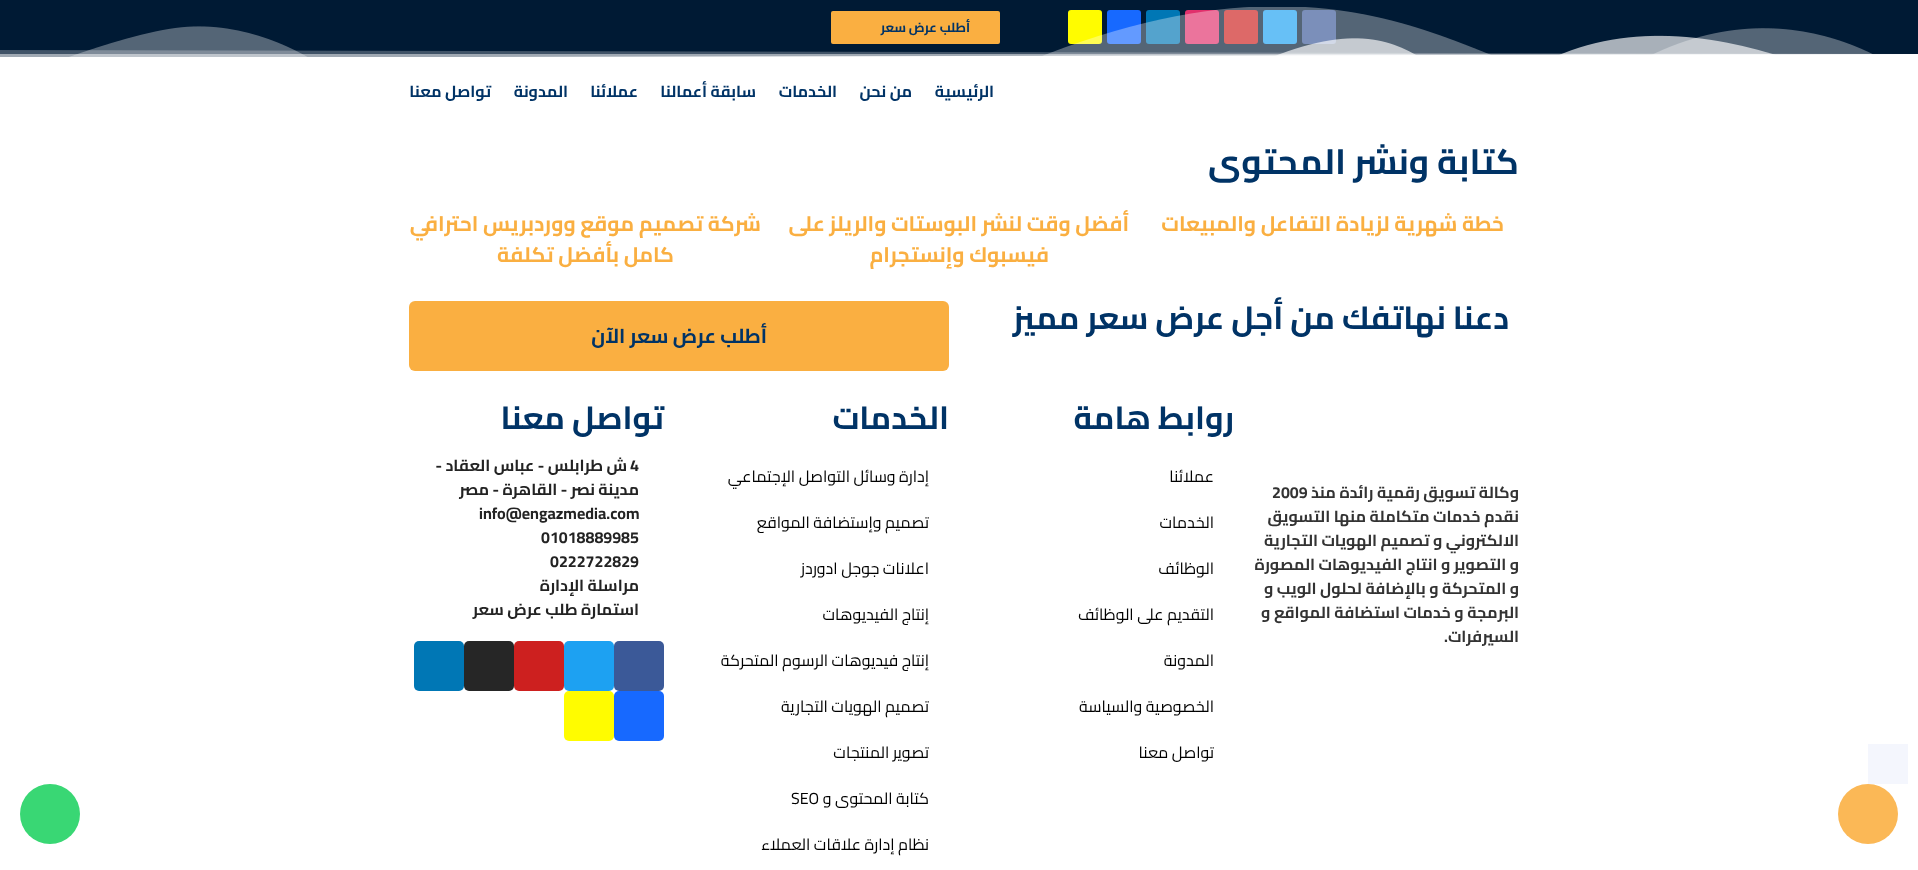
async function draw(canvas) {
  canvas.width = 1918
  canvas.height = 870
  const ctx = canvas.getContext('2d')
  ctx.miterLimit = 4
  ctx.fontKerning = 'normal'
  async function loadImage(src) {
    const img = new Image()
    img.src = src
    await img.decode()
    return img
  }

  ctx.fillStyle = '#fff'
  ctx.fillRect(0, 0, 1918, 870)
  ctx.fillStyle = '#001a34'
  ctx.fillRect(0, 0, 1918, 54)
  ctx.fillStyle = '#808d9a'
  ctx.fillRect(0, 54, 1918, 3)
  ctx.fillStyle = '#3b5998'
  ctx.beginPath()
  ctx.roundRect(1302, 10, 34, 34, 3)
  ctx.fill()
  ctx.fillStyle = '#1da1f2'
  ctx.beginPath()
  ctx.roundRect(1263, 10, 34, 34, 3)
  ctx.fill()
  ctx.fillStyle = '#cd201f'
  ctx.beginPath()
  ctx.roundRect(1224, 10, 34, 34, 3)
  ctx.fill()
  ctx.fillStyle = '#e1306c'
  ctx.beginPath()
  ctx.roundRect(1185, 10, 34, 34, 3)
  ctx.fill()
  ctx.fillStyle = '#0077b5'
  ctx.beginPath()
  ctx.roundRect(1146, 10, 34, 34, 3)
  ctx.fill()
  ctx.fillStyle = '#1769ff'
  ctx.beginPath()
  ctx.roundRect(1107, 10, 34, 34, 3)
  ctx.fill()
  ctx.fillStyle = '#fffc00'
  ctx.beginPath()
  ctx.roundRect(1068, 10, 34, 34, 3)
  ctx.fill()
  ctx.fillStyle = '#faaf41'
  ctx.beginPath()
  ctx.roundRect(831, 11, 169, 33, 2)
  ctx.fill()
  ctx.direction = 'rtl'
  ctx.font = 'bold 13px Cairo'
  ctx.fillStyle = '#036'
  ctx.fillText('أطلب عرض سعر', 970, 32)
  ctx.fillStyle = '#fff'
  ctx.beginPath()
  ctx.moveTo(-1, 58)
  ctx.lineTo(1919, 58)
  ctx.lineTo(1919, 54)
  ctx.closePath()
  ctx.fill()
  ctx.fillStyle = '#ffffff40'
  ctx.beginPath()
  ctx.moveTo(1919, 58)
  ctx.lineTo(-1, 58)
  ctx.lineTo(-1, 50)
  ctx.lineTo(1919, 54)
  ctx.closePath()
  ctx.fill()
  ctx.font = 'bold 16px Cairo'
  ctx.fillStyle = '#036'
  ctx.fillText('الرئيسية', 994, 97)
  ctx.fillText('من نحن', 912, 97)
  ctx.fillText('الخدمات', 837, 97)
  ctx.fillText('سابقة أعمالنا', 756, 97)
  ctx.fillText('عملائنا', 638, 97)
  ctx.fillText('المدونة', 568, 97)
  ctx.fillText('تواصل معنا', 491, 97)
  ctx.drawImage(await loadImage('image0.png'), 69, 7, 1804, 50)
  ctx.font = 'bold 35px Cairo'
  ctx.fillText('كتابة ونشر المحتوى', 1519, 174)
  ctx.font = 'bold 21px Cairo'
  ctx.fillStyle = '#faaf41'
  ctx.fillText('خطة شهرية لزيادة التفاعل والمبيعات', 1504, 231)
  ctx.fillText('أفضل وقت لنشر البوستات والريلز على', 1129, 231)
  ctx.fillText('فيسبوك وإنستجرام', 1049, 262)
  ctx.fillText('شركة تصميم موقع ووردبريس احترافي', 761, 231)
  ctx.fillText('كامل بأفضل تكلفة', 674, 262)
  ctx.font = 'bold 32px Cairo'
  ctx.fillStyle = '#036'
  ctx.fillText('دعنا نهاتفك من أجل عرض سعر مميز', 1509, 329)
  ctx.fillStyle = '#faaf41'
  ctx.beginPath()
  ctx.roundRect(409, 301, 540, 70, 6)
  ctx.fill()
  ctx.font = 'bold 20px Cairo'
  ctx.fillStyle = '#036'
  ctx.fillText('أطلب عرض سعر الآن', 767, 343)
  ctx.font = 'bold 16px Cairo'
  ctx.fillStyle = '#333'
  ctx.fillText('وكالة تسويق رقمية رائدة منذ', 1519, 498)
  ctx.direction = 'ltr'
  ctx.fillText('2009', 1272, 498)
  ctx.direction = 'rtl'
  ctx.fillText('نقدم خدمات متكاملة منها التسويق', 1519, 522)
  ctx.fillText('الالكتروني و تصميم الهويات التجارية', 1519, 546)
  ctx.fillText('و التصوير و انتاج الفيديوهات المصورة', 1519, 570)
  ctx.fillText('و المتحركة و بالإضافة لحلول الويب و', 1519, 594)
  ctx.fillText('البرمجة و خدمات استضافة المواقع و', 1519, 618)
  ctx.fillText('السيرفرات.', 1519, 642)
  ctx.fillStyle = '#f4f6fd'
  ctx.fillRect(1868, 744, 40, 40)
  ctx.fillStyle = '#fbb856'
  ctx.beginPath()
  ctx.arc(1868, 814, 30, 0, 2 * Math.PI)
  ctx.fill()
  ctx.fillStyle = '#39d774'
  ctx.beginPath()
  ctx.arc(50, 814, 30, 0, 2 * Math.PI)
  ctx.fill()
  ctx.font = 'bold 32px Cairo'
  ctx.fillStyle = '#036'
  ctx.fillText('روابط هامة', 1234, 429)
  ctx.font = '16px Cairo'
  ctx.fillStyle = '#000'
  ctx.fillText('عملائنا', 1214, 482)
  ctx.fillText('الخدمات', 1214, 528)
  ctx.fillText('الوظائف', 1214, 574)
  ctx.fillText('التقديم على الوظائف', 1214, 620)
  ctx.fillText('المدونة', 1214, 666)
  ctx.fillText('الخصوصية والسياسة', 1214, 712)
  ctx.fillText('تواصل معنا', 1214, 758)
  ctx.font = 'bold 32px Cairo'
  ctx.fillStyle = '#036'
  ctx.fillText('الخدمات', 949, 429)
  ctx.font = '16px Cairo'
  ctx.fillStyle = '#000'
  ctx.fillText('إدارة وسائل التواصل الإجتماعي', 929, 482)
  ctx.fillText('تصميم وإستضافة المواقع', 929, 528)
  ctx.fillText('اعلانات جوجل ادوردز', 929, 574)
  ctx.fillText('إنتاج الفيديوهات', 929, 620)
  ctx.fillText('إنتاج فيديوهات الرسوم المتحركة', 929, 666)
  ctx.fillText('تصميم الهويات التجارية', 929, 712)
  ctx.fillText('تصوير المنتجات', 929, 758)
  ctx.fillText('كتابة المحتوى و', 929, 804)
  ctx.direction = 'ltr'
  ctx.fillText('SEO', 791, 804)
  ctx.direction = 'rtl'
  ctx.fillText('نظام إدارة علاقات العملاء', 929, 850)
  ctx.font = 'bold 32px Cairo'
  ctx.fillStyle = '#036'
  ctx.fillText('تواصل معنا', 664, 429)
  ctx.direction = 'ltr'
  ctx.font = 'bold 16px Cairo'
  ctx.fillStyle = '#232323'
  ctx.fillText('4', 630, 471)
  ctx.direction = 'rtl'
  ctx.fillText('ش طرابلس - عباس العقاد -', 627, 471)
  ctx.fillText('مدينة نصر - القاهرة - مصر', 639, 495)
  ctx.direction = 'ltr'
  ctx.fillText('info@engazmedia.com', 479, 519)
  ctx.fillText('01018889985', 541, 543)
  ctx.fillText('0222722829', 550, 567)
  ctx.direction = 'rtl'
  ctx.fillText('مراسلة الإدارة', 639, 591)
  ctx.fillText('استمارة طلب عرض سعر', 639, 615)
  ctx.fillStyle = '#3b5998'
  ctx.beginPath()
  ctx.roundRect(614, 641, 50, 50, 5)
  ctx.fill()
  ctx.fillStyle = '#1da1f2'
  ctx.beginPath()
  ctx.roundRect(564, 641, 50, 50, 5)
  ctx.fill()
  ctx.fillStyle = '#cd201f'
  ctx.beginPath()
  ctx.roundRect(514, 641, 50, 50, 5)
  ctx.fill()
  ctx.fillStyle = '#262626'
  ctx.beginPath()
  ctx.roundRect(464, 641, 50, 50, 5)
  ctx.fill()
  ctx.fillStyle = '#0077b5'
  ctx.beginPath()
  ctx.roundRect(414, 641, 50, 50, 5)
  ctx.fill()
  ctx.fillStyle = '#1769ff'
  ctx.beginPath()
  ctx.roundRect(614, 691, 50, 50, 5)
  ctx.fill()
  ctx.fillStyle = '#fffc00'
  ctx.beginPath()
  ctx.roundRect(564, 691, 50, 50, 5)
  ctx.fill()
}

draw(document.querySelector('canvas'))
